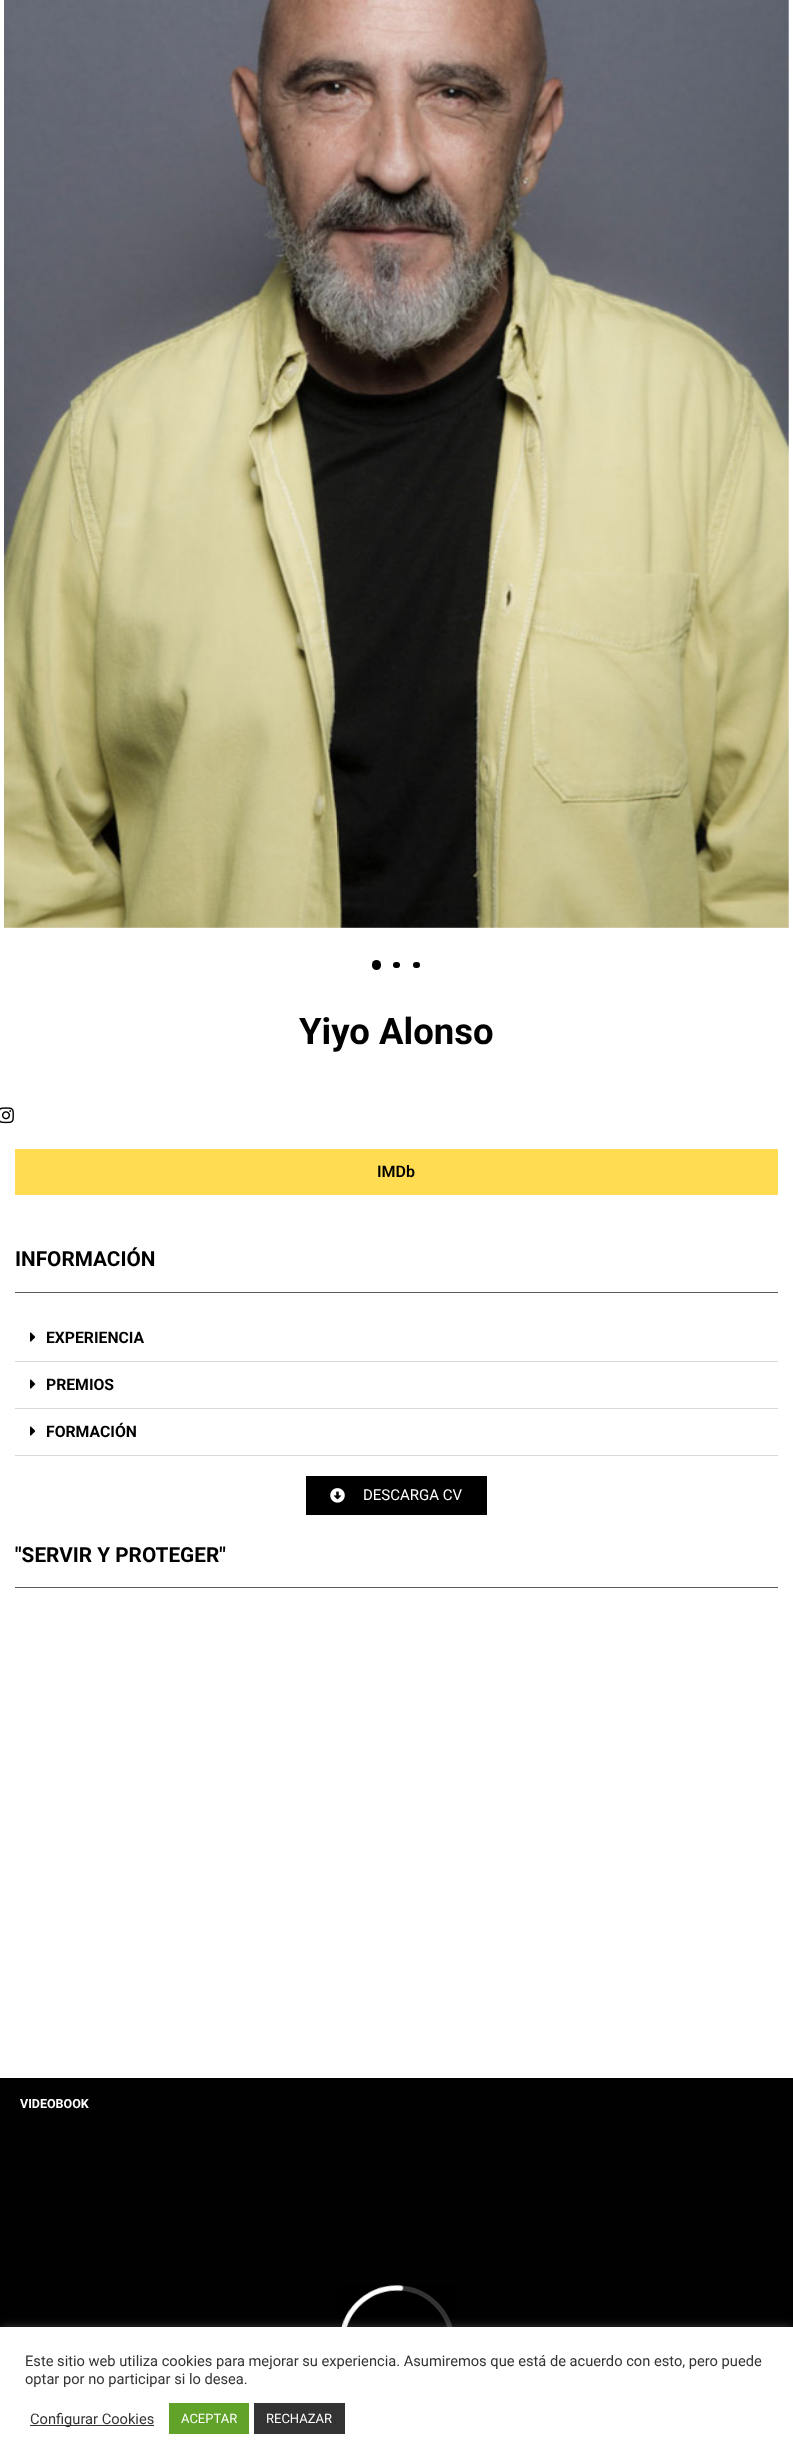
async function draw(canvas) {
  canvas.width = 793
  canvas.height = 2464
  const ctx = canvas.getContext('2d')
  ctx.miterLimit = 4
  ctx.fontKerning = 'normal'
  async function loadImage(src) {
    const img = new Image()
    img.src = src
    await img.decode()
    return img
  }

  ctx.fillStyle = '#fff'
  ctx.fillRect(0, 0, 793, 2464)
  ctx.drawImage(await loadImage('image0.png'), 4, 0, 785, 928)
  ctx.fillStyle = '#000'
  ctx.beginPath()
  ctx.roundRect(372, 960, 9, 10, 4.5)
  ctx.fill()
  ctx.beginPath()
  ctx.roundRect(393, 962, 7, 6, 3)
  ctx.fill()
  ctx.beginPath()
  ctx.roundRect(413, 962, 7, 6, 3)
  ctx.fill()
  ctx.font = 'bold 36.5px Roboto'
  ctx.fillText('Yiyo Alonso', 299, 1044)
  ctx.drawImage(await loadImage('image1.png'), 0, 1107, 14, 17)
  ctx.fillStyle = '#ffdc52'
  ctx.fillRect(15, 1149, 763, 46)
  ctx.font = '600 16px Roboto'
  ctx.fillStyle = '#000'
  ctx.fillText('IMDb', 377, 1177)
  ctx.font = 'bold 20.75px Roboto'
  ctx.fillText('INFORMACIÓN', 15, 1266)
  ctx.fillStyle = '#54595f'
  ctx.fillRect(15, 1292, 763, 1)
  ctx.fillStyle = '#d5d8dc'
  ctx.fillRect(15, 1361, 763, 1)
  ctx.drawImage(await loadImage('image2.png'), 30, 1332, 6, 10)
  ctx.font = 'bold 15.75px Roboto'
  ctx.fillStyle = '#000'
  ctx.fillText('EXPERIENCIA', 46, 1343)
  ctx.fillStyle = '#d5d8dc'
  ctx.fillRect(15, 1408, 763, 1)
  ctx.drawImage(await loadImage('image2.png'), 30, 1379, 6, 10)
  ctx.fillStyle = '#000'
  ctx.fillText('PREMIOS', 46, 1390)
  ctx.fillStyle = '#d5d8dc'
  ctx.fillRect(15, 1455, 763, 1)
  ctx.drawImage(await loadImage('image2.png'), 30, 1426, 6, 10)
  ctx.fillStyle = '#000'
  ctx.fillText('FORMACIÓN', 46, 1437)
  ctx.fillRect(306, 1476, 181, 39)
  ctx.drawImage(await loadImage('image3.png'), 330, 1488, 15, 15)
  ctx.font = '15px Roboto'
  ctx.fillStyle = '#fff'
  ctx.fillText('DESCARGA CV', 363, 1500)
  ctx.font = 'bold 20.75px Roboto'
  ctx.fillStyle = '#000'
  ctx.fillText('"SERVIR Y PROTEGER"', 15, 1562)
  ctx.fillStyle = '#54595f'
  ctx.fillRect(15, 1587, 763, 1)
  ctx.fillStyle = '#020101'
  ctx.fillRect(0, 2078, 793, 249)
  ctx.font = 'bold 12.5px Roboto'
  ctx.fillStyle = '#fff'
  ctx.fillText('VIDEOBOOK', 20, 2108)
  ctx.drawImage(await loadImage('image4.png'), 338, 2284, 117, 43)
  ctx.fillStyle = '#acabab4d'
  ctx.filter = 'blur(5px)'
  ctx.beginPath()
  ctx.rect(0, 2326, 793, 137)
  ctx.fill()
  ctx.filter = 'none'
  ctx.fillStyle = '#fff'
  ctx.fillRect(0, 2327, 793, 137)
  ctx.font = '14.67px Roboto'
  ctx.fillStyle = '#333'
  ctx.fillText('Este sitio web utiliza cookies para mejorar su experiencia. Asumiremos que está de acuerdo con esto, pero puede', 25, 2366)
  ctx.fillText('optar por no participar si lo desea.', 25, 2384)
  ctx.fillRect(30, 2425, 124, 1)
  ctx.fillText('Configurar Cookies', 30, 2424)
  ctx.fillStyle = '#61a229'
  ctx.fillRect(169, 2403, 80, 31)
  ctx.font = '13px Roboto'
  ctx.fillStyle = '#fff'
  ctx.fillText('ACEPTAR', 181, 2423)
  ctx.fillStyle = '#333'
  ctx.fillRect(254, 2403, 91, 31)
  ctx.fillStyle = '#fff'
  ctx.fillText('RECHAZAR', 266, 2423)
}

draw(document.querySelector('canvas'))
